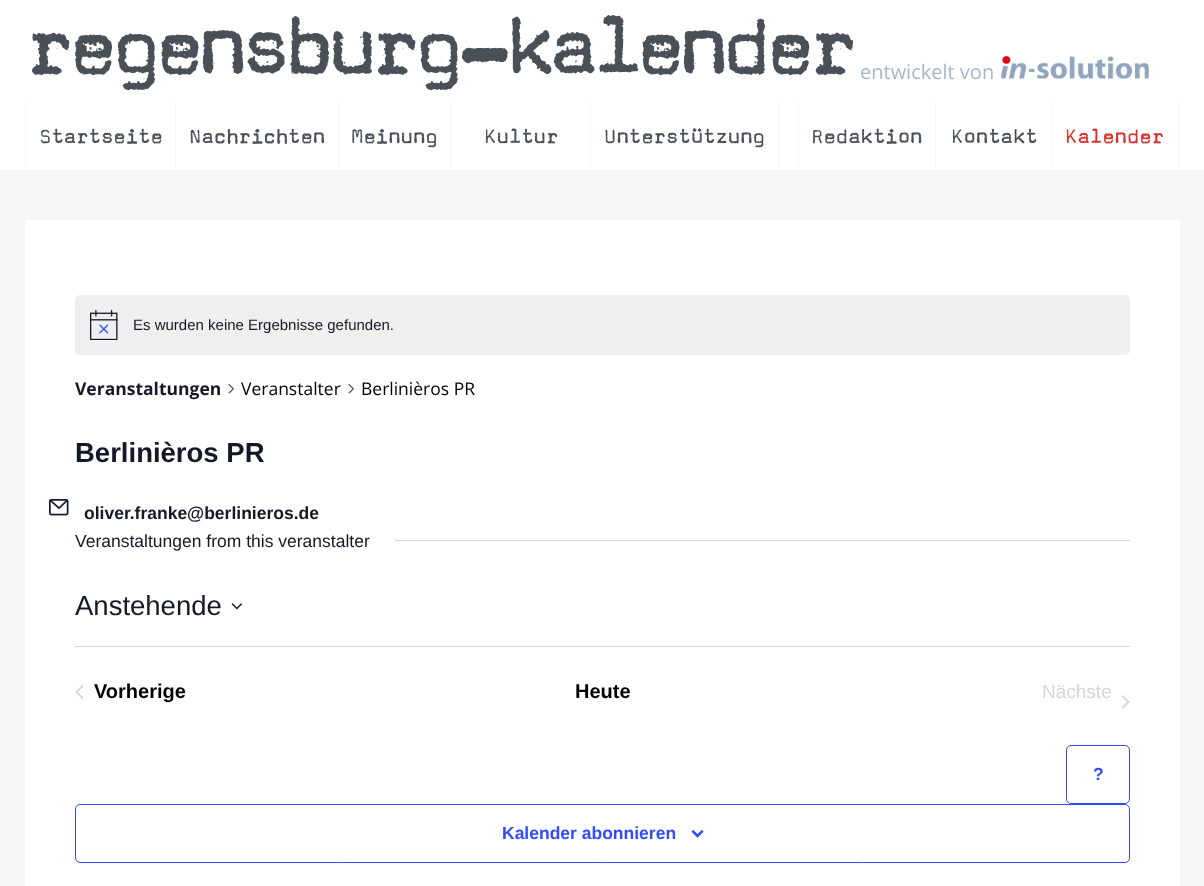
async function draw(canvas) {
  canvas.width = 1204
  canvas.height = 886
  const ctx = canvas.getContext('2d')
  ctx.miterLimit = 4
  ctx.fontKerning = 'normal'
  async function loadImage(src) {
    const img = new Image()
    img.src = src
    await img.decode()
    return img
  }

  ctx.fillStyle = '#f5f5f5'
  ctx.fillRect(0, 0, 1204, 886)
  ctx.fillStyle = '#fff'
  ctx.fillRect(0, 0, 1204, 170)
  ctx.letterSpacing = '-6.25px'
  ctx.font = '500 90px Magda'
  ctx.fillStyle = '#495057'
  ctx.fillText('regensburg', 25, 73)
  ctx.fillText('–', 460, 88)
  ctx.fillText('kalender', 506, 73)
  ctx.letterSpacing = '0px'
  ctx.font = '20px Open Sans'
  ctx.fillStyle = '#a7b7ca'
  ctx.fillText('entwickelt von', 860, 79)
  ctx.drawImage(await loadImage('image0.png'), 1001, 56, 148, 23)
  ctx.fillStyle = '#f5f5f5'
  ctx.fillRect(175, 101, 1, 69)
  ctx.fillRect(25, 101, 1, 69)
  ctx.font = '500 22.5px Magda'
  ctx.fillStyle = '#495057'
  ctx.fillText('Startseite', 39, 143)
  ctx.fillStyle = '#f5f5f5'
  ctx.fillRect(338, 101, 1, 69)
  ctx.fillStyle = '#495057'
  ctx.fillText('Nachrichten', 189, 143)
  ctx.fillStyle = '#f5f5f5'
  ctx.fillRect(450, 101, 1, 69)
  ctx.fillStyle = '#495057'
  ctx.fillText('Meinung', 351, 143)
  ctx.fillStyle = '#f5f5f5'
  ctx.fillRect(590, 101, 1, 69)
  ctx.fillStyle = '#495057'
  ctx.fillText('Kultur', 484, 143)
  ctx.fillStyle = '#f5f5f5'
  ctx.fillRect(778, 101, 1, 69)
  ctx.fillStyle = '#495057'
  ctx.fillText('Unterstützung', 604, 143)
  ctx.fillStyle = '#f5f5f5'
  ctx.fillRect(935, 101, 1, 69)
  ctx.fillRect(798, 101, 1, 69)
  ctx.fillStyle = '#495057'
  ctx.fillText('Redaktion', 811, 143)
  ctx.fillStyle = '#f5f5f5'
  ctx.fillRect(1051, 101, 1, 69)
  ctx.fillStyle = '#495057'
  ctx.fillText('Kontakt', 951, 143)
  ctx.fillStyle = '#f5f5f5'
  ctx.fillRect(1178, 101, 1, 69)
  ctx.fillStyle = '#d6312d'
  ctx.fillText('Kalender', 1065, 143)
  ctx.fillStyle = '#fff'
  ctx.fillRect(25, 220, 1155, 666)
  ctx.fillStyle = '#efeff0'
  ctx.beginPath()
  ctx.roundRect(75, 295, 1055, 60, 5)
  ctx.fill()
  ctx.drawImage(await loadImage('image1.png'), 90, 310, 28, 30)
  ctx.font = '15px Liberation Sans'
  ctx.fillStyle = '#141827'
  ctx.fillText('Es wurden keine Ergebnisse gefunden.', 133, 330)
  ctx.font = 'bold 17.5px Open Sans'
  ctx.fillText('Veranstaltungen', 75, 395)
  ctx.drawImage(await loadImage('image2.png'), 228, 384, 7, 10)
  ctx.font = '17.5px Open Sans'
  ctx.fillStyle = '#000'
  ctx.fillText('Veranstalter', 241, 395)
  ctx.drawImage(await loadImage('image2.png'), 348, 384, 7, 10)
  ctx.fillText('Berlinièros PR', 361, 395)
  ctx.font = 'bold 27.5px Liberation Sans'
  ctx.fillStyle = '#141827'
  ctx.fillText('Berlinièros PR', 75, 462)
  ctx.drawImage(await loadImage('image3.png'), 49, 499, 20, 17)
  ctx.font = 'bold 17.5px Liberation Sans'
  ctx.fillText('oliver.franke@berlinieros.de', 84, 519)
  ctx.font = '17.5px Liberation Sans'
  ctx.fillText('Veranstaltungen from this veranstalter', 75, 547)
  ctx.fillStyle = '#d5d5d5'
  ctx.fillRect(395, 540, 735, 1)
  ctx.font = '27.5px Liberation Sans'
  ctx.fillStyle = '#141827'
  ctx.fillText('Anstehende', 75, 615)
  ctx.drawImage(await loadImage('image4.png'), 231, 603, 12, 7)
  ctx.fillStyle = '#d5d5d5'
  ctx.fillRect(75, 646, 1055, 1)
  ctx.drawImage(await loadImage('image5.png'), 75, 685, 9, 14)
  ctx.font = 'bold 20px Liberation Sans'
  ctx.fillStyle = '#000'
  ctx.fillText('Vorherige', 94, 698)
  ctx.fillText('Heute', 575, 698)
  ctx.font = '19px Liberation Sans'
  ctx.fillStyle = '#d5d5d5'
  ctx.fillText('Nächste', 1042, 698)
  ctx.drawImage(await loadImage('image6.png'), 1121, 695, 9, 14)
  ctx.beginPath()
  ctx.roundRect(1066.5, 745.5, 63, 58, 4.5)
  ctx.strokeStyle = '#334aff'
  ctx.stroke()
  ctx.font = 'bold 17.5px Liberation Sans'
  ctx.fillStyle = '#334aff'
  ctx.fillText('?', 1093, 780)
  ctx.beginPath()
  ctx.roundRect(75.5, 804.5, 1054, 58, 4.5)
  ctx.stroke()
  ctx.fillText('Kalender abonnieren', 502, 839)
  ctx.drawImage(await loadImage('image7.png'), 691, 830, 13, 8)
}

draw(document.querySelector('canvas'))
